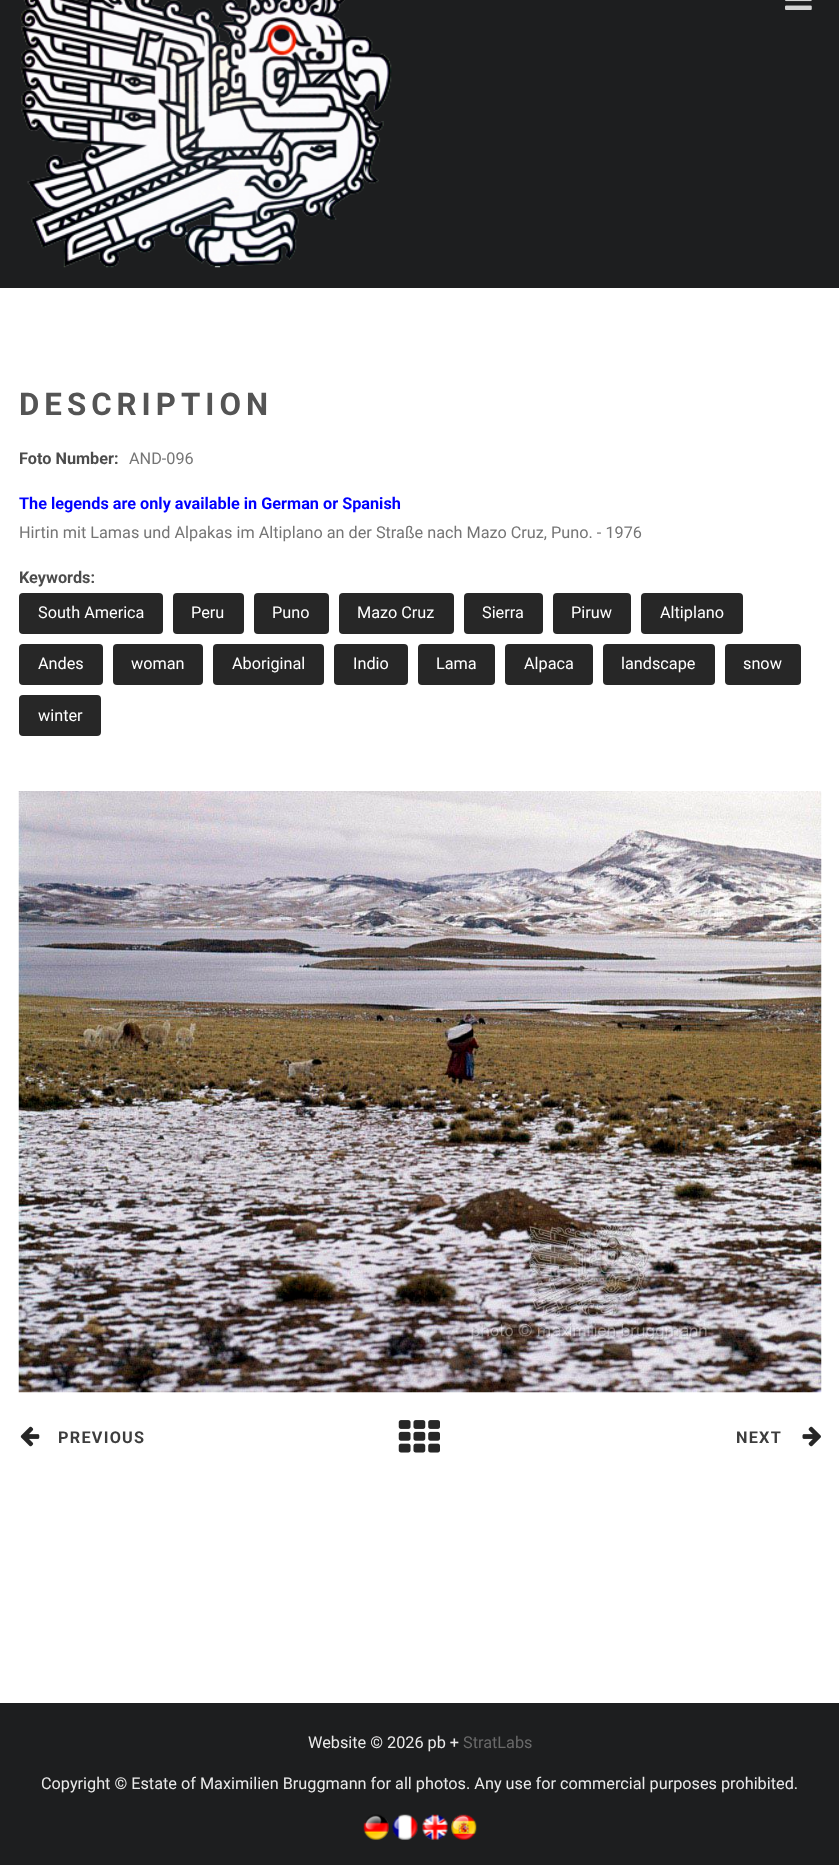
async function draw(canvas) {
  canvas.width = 839
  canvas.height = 1865
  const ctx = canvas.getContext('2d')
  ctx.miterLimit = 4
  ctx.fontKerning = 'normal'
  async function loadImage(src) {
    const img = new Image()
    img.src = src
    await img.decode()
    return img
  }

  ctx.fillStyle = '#fff'
  ctx.fillRect(0, 0, 839, 1865)
  ctx.fillStyle = '#1d1e1f'
  ctx.fillRect(0, 0, 839, 288)
  ctx.drawImage(await loadImage('image0.png'), 20, 0, 372, 268)
  ctx.drawImage(await loadImage('image1.png'), 785, 0, 27, 10)
  ctx.letterSpacing = '5px'
  ctx.font = 'bold 31.25px Roboto'
  ctx.fillStyle = '#545454'
  ctx.fillText('DESCRIPTION', 19, 415)
  ctx.letterSpacing = '0px'
  ctx.font = 'bold 16.25px Roboto'
  ctx.fillStyle = '#4c4c4c'
  ctx.fillText('Foto Number:', 19, 464)
  ctx.font = '16.25px Roboto'
  ctx.fillStyle = '#757575'
  ctx.fillText('AND-096', 129, 464)
  ctx.font = 'bold 16.25px Roboto'
  ctx.fillStyle = '#00f'
  ctx.fillText('The legends are only available in German or Spanish', 19, 509)
  ctx.font = '16.25px Roboto'
  ctx.fillStyle = '#757575'
  ctx.fillText('Hirtin mit Lamas und Alpakas im Altiplano an der Straße nach Mazo Cruz, Puno. - 1976', 19, 538)
  ctx.font = 'bold 16.25px Roboto'
  ctx.fillStyle = '#4c4c4c'
  ctx.fillText('Keywords:', 19, 583)
  ctx.fillStyle = '#272727'
  ctx.beginPath()
  ctx.roundRect(19, 593, 144, 41, 4)
  ctx.fill()
  ctx.font = '16.25px Roboto'
  ctx.fillStyle = '#fff'
  ctx.fillText('South America', 38, 618)
  ctx.fillStyle = '#272727'
  ctx.beginPath()
  ctx.roundRect(173, 593, 71, 41, 4)
  ctx.fill()
  ctx.fillStyle = '#fff'
  ctx.fillText('Peru', 191, 618)
  ctx.fillStyle = '#272727'
  ctx.beginPath()
  ctx.roundRect(254, 593, 75, 41, 4)
  ctx.fill()
  ctx.fillStyle = '#fff'
  ctx.fillText('Puno', 272, 618)
  ctx.fillStyle = '#272727'
  ctx.beginPath()
  ctx.roundRect(339, 593, 115, 41, 4)
  ctx.fill()
  ctx.fillStyle = '#fff'
  ctx.fillText('Mazo Cruz', 357, 618)
  ctx.fillStyle = '#272727'
  ctx.beginPath()
  ctx.roundRect(464, 593, 79, 41, 4)
  ctx.fill()
  ctx.fillStyle = '#fff'
  ctx.fillText('Sierra', 482, 618)
  ctx.fillStyle = '#272727'
  ctx.beginPath()
  ctx.roundRect(553, 593, 78, 41, 4)
  ctx.fill()
  ctx.fillStyle = '#fff'
  ctx.fillText('Piruw', 571, 618)
  ctx.fillStyle = '#272727'
  ctx.beginPath()
  ctx.roundRect(641, 593, 102, 41, 4)
  ctx.fill()
  ctx.fillStyle = '#fff'
  ctx.fillText('Altiplano', 660, 618)
  ctx.fillStyle = '#272727'
  ctx.beginPath()
  ctx.roundRect(19, 644, 84, 41, 4)
  ctx.fill()
  ctx.fillStyle = '#fff'
  ctx.fillText('Andes', 38, 669)
  ctx.fillStyle = '#272727'
  ctx.beginPath()
  ctx.roundRect(113, 644, 90, 41, 4)
  ctx.fill()
  ctx.fillStyle = '#fff'
  ctx.fillText('woman', 131, 669)
  ctx.fillStyle = '#272727'
  ctx.beginPath()
  ctx.roundRect(213, 644, 111, 41, 4)
  ctx.fill()
  ctx.fillStyle = '#fff'
  ctx.fillText('Aboriginal', 232, 669)
  ctx.fillStyle = '#272727'
  ctx.beginPath()
  ctx.roundRect(334, 644, 74, 41, 4)
  ctx.fill()
  ctx.fillStyle = '#fff'
  ctx.fillText('Indio', 353, 669)
  ctx.fillStyle = '#272727'
  ctx.beginPath()
  ctx.roundRect(418, 644, 77, 41, 4)
  ctx.fill()
  ctx.fillStyle = '#fff'
  ctx.fillText('Lama', 436, 669)
  ctx.fillStyle = '#272727'
  ctx.beginPath()
  ctx.roundRect(505, 644, 88, 41, 4)
  ctx.fill()
  ctx.fillStyle = '#fff'
  ctx.fillText('Alpaca', 524, 669)
  ctx.fillStyle = '#272727'
  ctx.beginPath()
  ctx.roundRect(603, 644, 112, 41, 4)
  ctx.fill()
  ctx.fillStyle = '#fff'
  ctx.fillText('landscape', 621, 669)
  ctx.fillStyle = '#272727'
  ctx.beginPath()
  ctx.roundRect(725, 644, 76, 41, 4)
  ctx.fill()
  ctx.fillStyle = '#fff'
  ctx.fillText('snow', 743, 669)
  ctx.fillStyle = '#272727'
  ctx.beginPath()
  ctx.roundRect(19, 695, 82, 41, 4)
  ctx.fill()
  ctx.fillStyle = '#fff'
  ctx.fillText('winter', 38, 721)
  ctx.drawImage(await loadImage('image2.png'), 18, 791, 804, 602)
  ctx.drawImage(await loadImage('image3.png'), 20, 1426, 20, 21)
  ctx.letterSpacing = '1.25px'
  ctx.font = 'bold 16.25px Roboto'
  ctx.fillStyle = '#3d3d3d'
  ctx.fillText('PREVIOUS', 58, 1443)
  ctx.drawImage(await loadImage('image4.png'), 398, 1420, 42, 33)
  ctx.fillText('NEXT', 736, 1443)
  ctx.drawImage(await loadImage('image5.png'), 802, 1426, 19, 21)
  ctx.fillStyle = '#1d1e1f'
  ctx.fillRect(0, 1703, 839, 162)
  ctx.letterSpacing = '0px'
  ctx.font = '16.25px Roboto'
  ctx.fillStyle = '#eaeaea'
  ctx.fillText('Website © 2026 pb +', 308, 1748)
  ctx.fillStyle = '#696969'
  ctx.fillText('StratLabs', 463, 1748)
  ctx.fillStyle = '#eaeaea'
  ctx.fillText('Copyright © Estate of Maximilien Bruggmann for all photos. Any use for commercial purposes prohibited.', 41, 1789)
  ctx.drawImage(await loadImage('image6.png'), 363, 1814, 26, 26)
  ctx.drawImage(await loadImage('image7.png'), 392, 1814, 26, 26)
  ctx.drawImage(await loadImage('image8.png'), 422, 1814, 26, 26)
  ctx.drawImage(await loadImage('image9.png'), 451, 1814, 26, 26)
}

draw(document.querySelector('canvas'))
